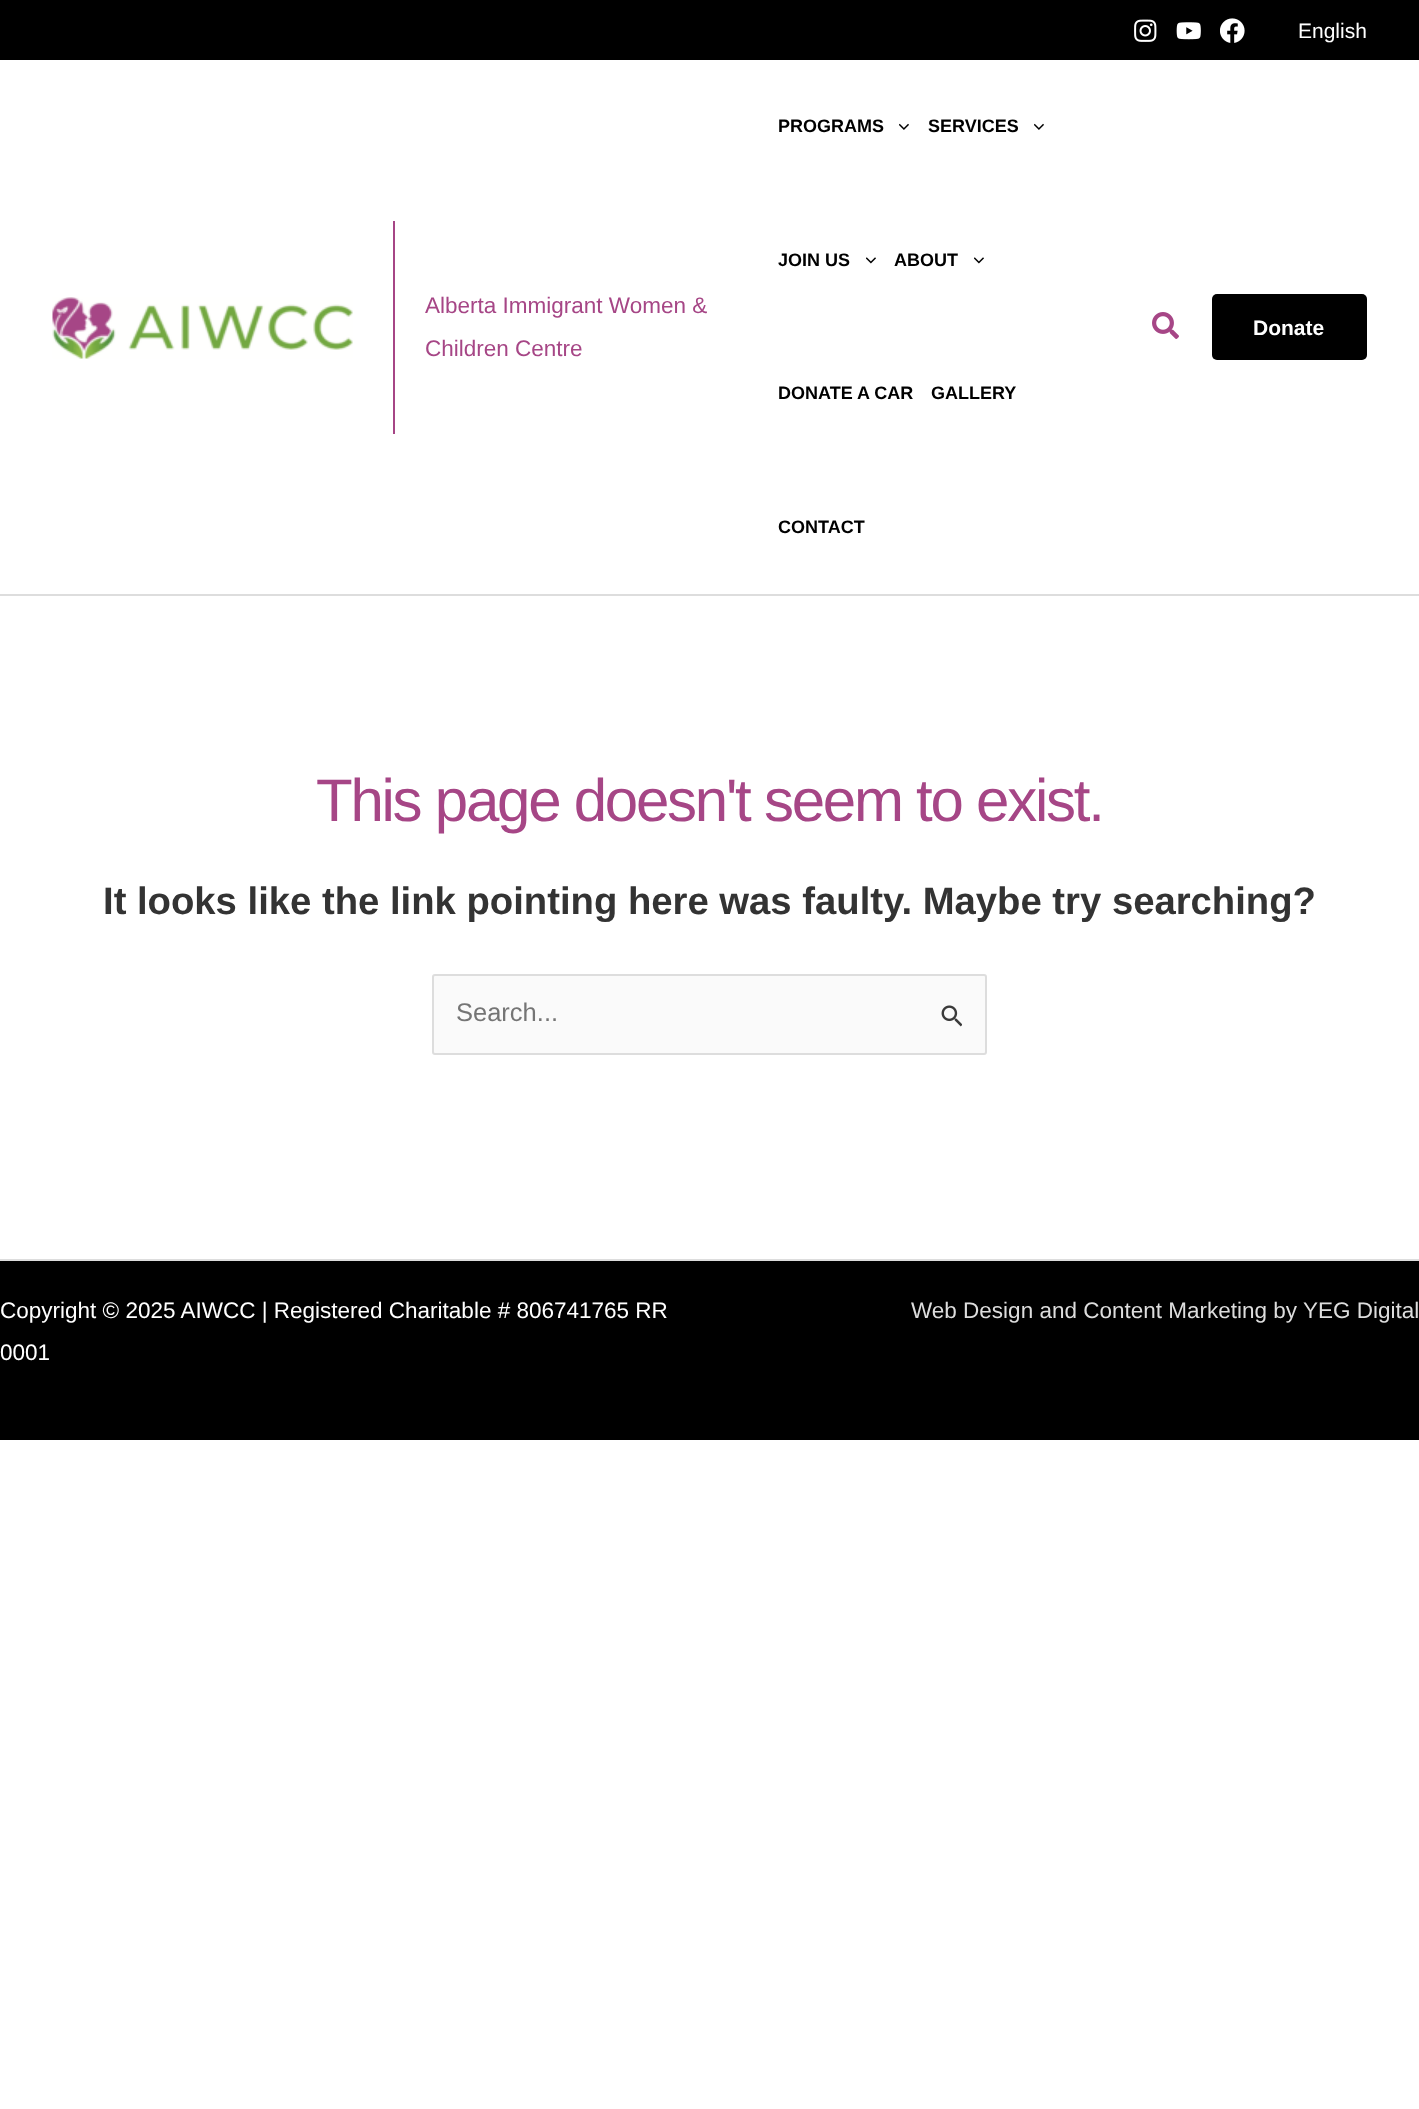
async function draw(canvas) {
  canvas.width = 1419
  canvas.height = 2109
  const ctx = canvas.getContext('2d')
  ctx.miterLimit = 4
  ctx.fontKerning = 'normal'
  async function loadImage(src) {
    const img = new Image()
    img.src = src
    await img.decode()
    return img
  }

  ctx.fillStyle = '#fff'
  ctx.fillRect(0, 0, 1419, 2109)
  ctx.fillStyle = '#000'
  ctx.fillRect(0, 0, 1419, 60)
  ctx.drawImage(await loadImage('image0.png'), 1134, 19, 23, 23)
  ctx.drawImage(await loadImage('image1.png'), 1176, 22, 25, 18)
  ctx.drawImage(await loadImage('image2.png'), 1220, 18, 25, 25)
  ctx.font = '21px Liberation Sans'
  ctx.fillStyle = '#fff'
  ctx.fillText('English', 1298, 38)
  ctx.fillStyle = '#ddd'
  ctx.fillRect(0, 594, 1419, 2)
  ctx.drawImage(await loadImage('image3.png'), 52, 297, 301, 62)
  ctx.fillStyle = '#a64686'
  ctx.fillRect(393, 221, 2, 213)
  ctx.font = '22.5px Liberation Sans'
  ctx.fillText('Alberta Immigrant Women &', 425, 313)
  ctx.fillText('Children Centre', 425, 356)
  ctx.font = 'bold 18px Liberation Sans'
  ctx.fillStyle = '#000'
  ctx.fillText('PROGRAMS', 778, 132)
  ctx.drawImage(await loadImage('image4.png'), 899, 123, 10, 7)
  ctx.fillText('SERVICES', 928, 132)
  ctx.drawImage(await loadImage('image4.png'), 1034, 123, 10, 7)
  ctx.fillText('JOIN US', 778, 266)
  ctx.drawImage(await loadImage('image5.png'), 866, 257, 10, 7)
  ctx.fillText('ABOUT', 894, 266)
  ctx.drawImage(await loadImage('image5.png'), 974, 257, 10, 7)
  ctx.fillText('DONATE A CAR', 778, 399)
  ctx.fillText('GALLERY', 931, 399)
  ctx.fillText('CONTACT', 778, 533)
  ctx.drawImage(await loadImage('image6.png'), 1152, 312, 27, 27)
  ctx.beginPath()
  ctx.roundRect(1212, 294, 155, 66, 5)
  ctx.fill()
  ctx.font = 'bold 21px Liberation Sans'
  ctx.fillStyle = '#fff'
  ctx.fillText('Donate', 1253, 335)
  ctx.letterSpacing = '-2.25px'
  ctx.font = '60px Liberation Sans'
  ctx.fillStyle = '#a64686'
  ctx.fillText('This page doesn\'t seem to exist.', 316, 821)
  ctx.letterSpacing = '0px'
  ctx.font = 'bold 38.25px Liberation Sans'
  ctx.fillStyle = '#333'
  ctx.fillText('It looks like the link pointing here was faulty. Maybe try searching?', 103, 914)
  ctx.fillStyle = '#fafafa'
  ctx.beginPath()
  ctx.roundRect(433, 975, 553, 79, 2)
  ctx.fill()
  ctx.strokeStyle = '#ddd'
  ctx.lineWidth = 2
  ctx.stroke()
  ctx.font = '25.5px Liberation Sans'
  ctx.fillStyle = '#757575'
  ctx.fillText('Search...', 456, 1021)
  ctx.drawImage(await loadImage('image7.png'), 941, 1005, 21, 22)
  ctx.fillStyle = '#000'
  ctx.fillRect(0, 1261, 1419, 179)
  ctx.fillStyle = '#ddd'
  ctx.fillRect(0, 1259, 1419, 2)
  ctx.font = '22.5px Liberation Sans'
  ctx.fillStyle = '#fff'
  ctx.fillText('Copyright © 2025 AIWCC | Registered Charitable # 806741765 RR', 0, 1318)
  ctx.fillText('0001', 0, 1360)
  ctx.fillStyle = '#ddd'
  ctx.fillText('Web Design and Content Marketing by YEG Digital', 911, 1318)
}

draw(document.querySelector('canvas'))
